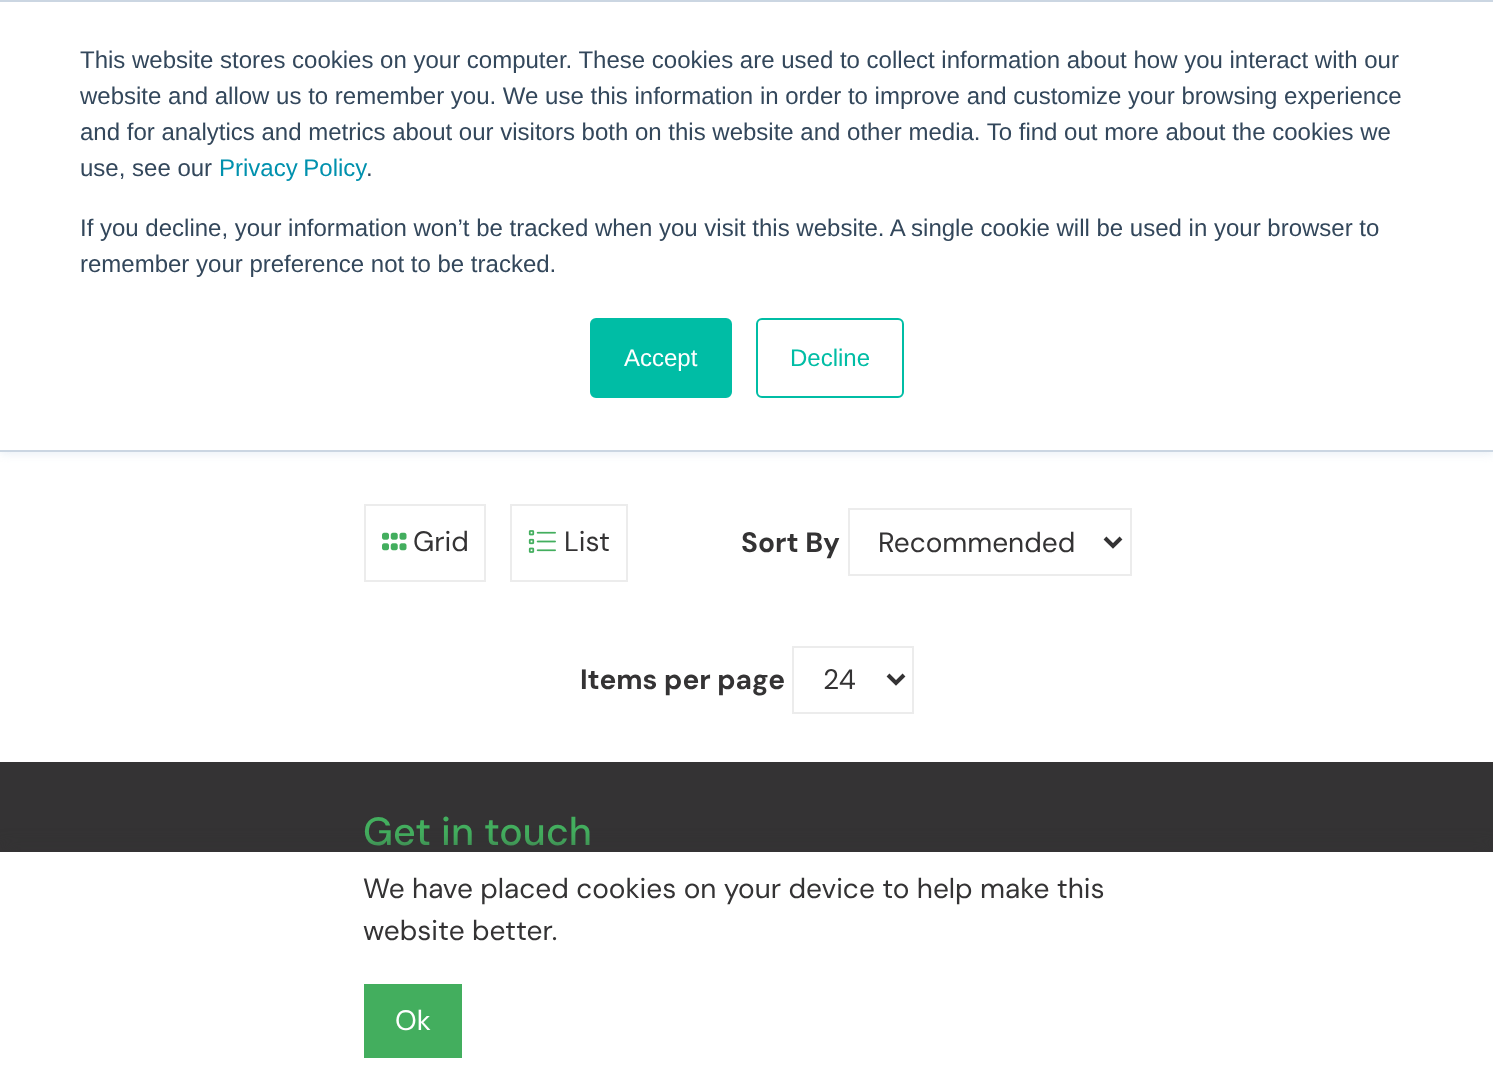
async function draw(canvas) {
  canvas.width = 1493
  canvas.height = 1073
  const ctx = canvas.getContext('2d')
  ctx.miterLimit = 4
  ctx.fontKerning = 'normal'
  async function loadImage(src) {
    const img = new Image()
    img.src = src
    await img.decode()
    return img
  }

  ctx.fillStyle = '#fff'
  ctx.fillRect(0, 0, 1493, 1073)
  ctx.fillStyle = '#eaf0f6'
  ctx.filter = 'blur(5px)'
  ctx.beginPath()
  ctx.rect(0, 2, 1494, 452)
  ctx.fill()
  ctx.filter = 'none'
  ctx.fillStyle = '#fff'
  ctx.fillRect(0, 2, 1493, 448)
  ctx.fillStyle = '#cbd6e2'
  ctx.fillRect(0, 0, 1493, 2)
  ctx.fillRect(0, 450, 1493, 2)
  ctx.font = '24px Liberation Sans'
  ctx.fillStyle = '#33475b'
  ctx.fillText('This website stores cookies on your computer. These cookies are used to collect information about how you interact with our', 80, 68)
  ctx.fillText('website and allow us to remember you. We use this information in order to improve and customize your browsing experience', 80, 104)
  ctx.fillText('and for analytics and metrics about our visitors both on this website and other media. To find out more about the cookies we', 80, 140)
  ctx.fillText('use, see our', 80, 176)
  ctx.wordSpacing = '-1px'
  ctx.fillStyle = '#0091ae'
  ctx.fillText('Privacy Policy', 219, 176)
  ctx.wordSpacing = '0px'
  ctx.fillStyle = '#33475b'
  ctx.fillText('.', 366, 176)
  ctx.fillText('If you decline, your information won’t be tracked when you visit this website. A single cookie will be used in your browser to', 80, 236)
  ctx.fillText('remember your preference not to be tracked.', 80, 272)
  ctx.fillStyle = '#00bda5'
  ctx.beginPath()
  ctx.roundRect(591, 319, 140, 78, 5)
  ctx.fill()
  ctx.strokeStyle = '#00bda5'
  ctx.lineWidth = 2
  ctx.stroke()
  ctx.fillStyle = '#fff'
  ctx.fillText('Accept', 624, 366)
  ctx.beginPath()
  ctx.roundRect(757, 319, 146, 78, 5)
  ctx.stroke()
  ctx.fillStyle = '#00bda5'
  ctx.fillText('Decline', 790, 366)
  ctx.strokeStyle = '#ececec'
  ctx.strokeRect(365, 505, 120, 76)
  ctx.drawImage(await loadImage('image0.png'), 382, 532, 25, 19)
  ctx.font = '28px DM Sans'
  ctx.fillStyle = '#343334'
  ctx.fillText('Grid', 413, 551)
  ctx.strokeRect(511, 505, 116, 76)
  ctx.drawImage(await loadImage('image1.png'), 528, 530, 28, 23)
  ctx.fillText('List', 564, 551)
  ctx.font = 'bold 28px DM Sans'
  ctx.fillText('Sort By', 741, 552)
  ctx.strokeRect(849, 509, 282, 66)
  ctx.beginPath()
  ctx.moveTo(1105, 538)
  ctx.lineTo(1113, 546)
  ctx.lineTo(1121, 538)
  ctx.strokeStyle = '#343334'
  ctx.lineWidth = 4
  ctx.stroke()
  ctx.font = '28px DM Sans'
  ctx.fillText('Recommended', 878, 552)
  ctx.font = 'bold 28px DM Sans'
  ctx.fillText('Items per page', 580, 689)
  ctx.strokeStyle = '#ececec'
  ctx.lineWidth = 2
  ctx.strokeRect(793, 647, 120, 66)
  ctx.beginPath()
  ctx.moveTo(888, 675)
  ctx.lineTo(896, 683)
  ctx.lineTo(904, 675)
  ctx.strokeStyle = '#343334'
  ctx.lineWidth = 4
  ctx.stroke()
  ctx.font = '28px DM Sans'
  ctx.fillText('24', 823, 689)
  ctx.fillRect(0, 762, 1493, 90)
  ctx.font = '500 39.25px DM Sans'
  ctx.fillStyle = '#43ae5e'
  ctx.fillText('Get in touch', 363, 845)
  ctx.fillStyle = '#343334'
  ctx.filter = 'blur(10px)'
  ctx.beginPath()
  ctx.rect(0, 852, 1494, 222)
  ctx.fill()
  ctx.filter = 'none'
  ctx.fillStyle = '#fff'
  ctx.fillRect(0, 852, 1493, 221)
  ctx.font = '28px DM Sans'
  ctx.fillStyle = '#343334'
  ctx.fillText('We have placed cookies on your device to help make this', 363, 898)
  ctx.fillText('website better.', 363, 940)
  ctx.fillStyle = '#43ae5e'
  ctx.fillRect(364, 984, 98, 74)
  ctx.fillStyle = '#fff'
  ctx.fillText('Ok', 395, 1030)
}

draw(document.querySelector('canvas'))
